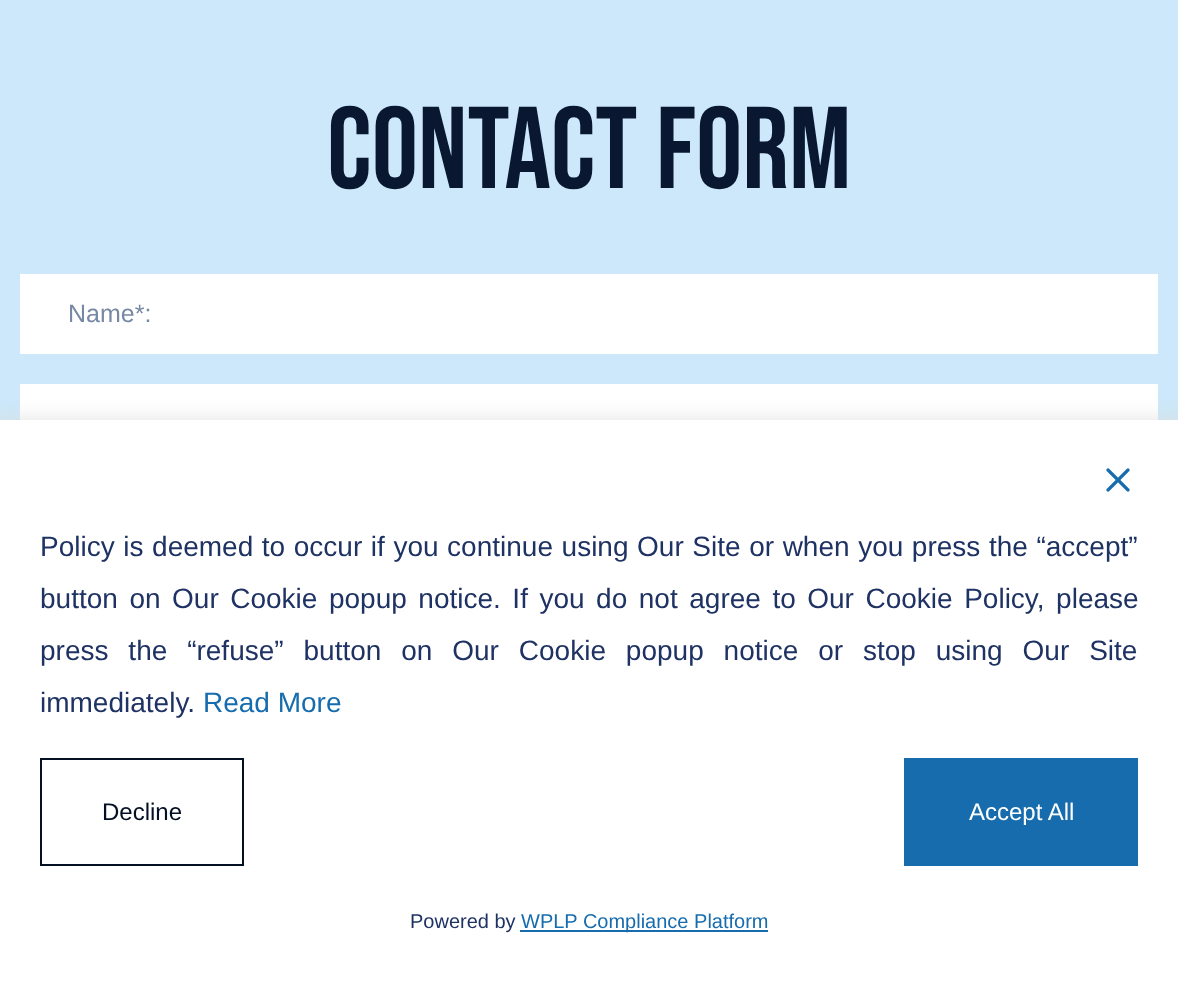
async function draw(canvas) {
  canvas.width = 1178
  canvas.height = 987
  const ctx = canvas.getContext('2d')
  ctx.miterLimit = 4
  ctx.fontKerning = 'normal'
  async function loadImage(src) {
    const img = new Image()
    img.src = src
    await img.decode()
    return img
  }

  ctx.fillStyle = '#cce8fa'
  ctx.fillRect(0, 0, 1178, 987)
  ctx.font = '116px Bebas Neue'
  ctx.fillStyle = '#091731'
  ctx.fillText('Contact Form', 327, 188)
  ctx.fillStyle = '#fff'
  ctx.fillRect(20, 274, 1138, 80)
  ctx.font = '25px Liberation Sans'
  ctx.fillStyle = '#7788a5'
  ctx.fillText('Name*:', 68, 322)
  ctx.fillStyle = '#fff'
  ctx.fillRect(20, 384, 1138, 36)
  ctx.fillStyle = '#ddd'
  ctx.filter = 'blur(11px)'
  ctx.beginPath()
  ctx.rect(-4, 422, 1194, 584)
  ctx.fill()
  ctx.filter = 'none'
  ctx.fillStyle = '#fff'
  ctx.fillRect(0, 420, 1178, 567)
  ctx.drawImage(await loadImage('image0.png'), 1106, 468, 24, 24)
  ctx.wordSpacing = '0.8px'
  ctx.font = '28px Liberation Sans'
  ctx.fillStyle = '#1e3263'
  ctx.fillText('Policy is deemed to occur if you continue using Our Site or when you press the “accept”', 40, 556)
  ctx.wordSpacing = '3.75px'
  ctx.fillText('button on Our Cookie popup notice. If you do not agree to Our Cookie Policy, please', 40, 608)
  ctx.wordSpacing = '12.1px'
  ctx.fillText('press the “refuse” button on Our Cookie popup notice or stop using Our Site', 40, 660)
  ctx.wordSpacing = '0px'
  ctx.fillText('immediately.', 40, 712)
  ctx.fillStyle = '#176cae'
  ctx.fillText('Read More', 203, 712)
  ctx.strokeStyle = '#030f23'
  ctx.lineWidth = 2
  ctx.strokeRect(41, 759, 202, 106)
  ctx.font = '24px Liberation Sans'
  ctx.fillStyle = '#030f23'
  ctx.fillText('Decline', 102, 820)
  ctx.fillStyle = '#176cae'
  ctx.fillRect(904, 758, 234, 108)
  ctx.fillStyle = '#fff'
  ctx.fillText('Accept All', 969, 820)
  ctx.font = '20px Liberation Sans'
  ctx.fillStyle = '#1e3263'
  ctx.fillText('Powered by', 410, 928)
  ctx.fillStyle = '#176cae'
  ctx.fillRect(520, 930, 248, 2)
  ctx.fillText('WPLP Compliance Platform', 521, 928)
}

draw(document.querySelector('canvas'))
